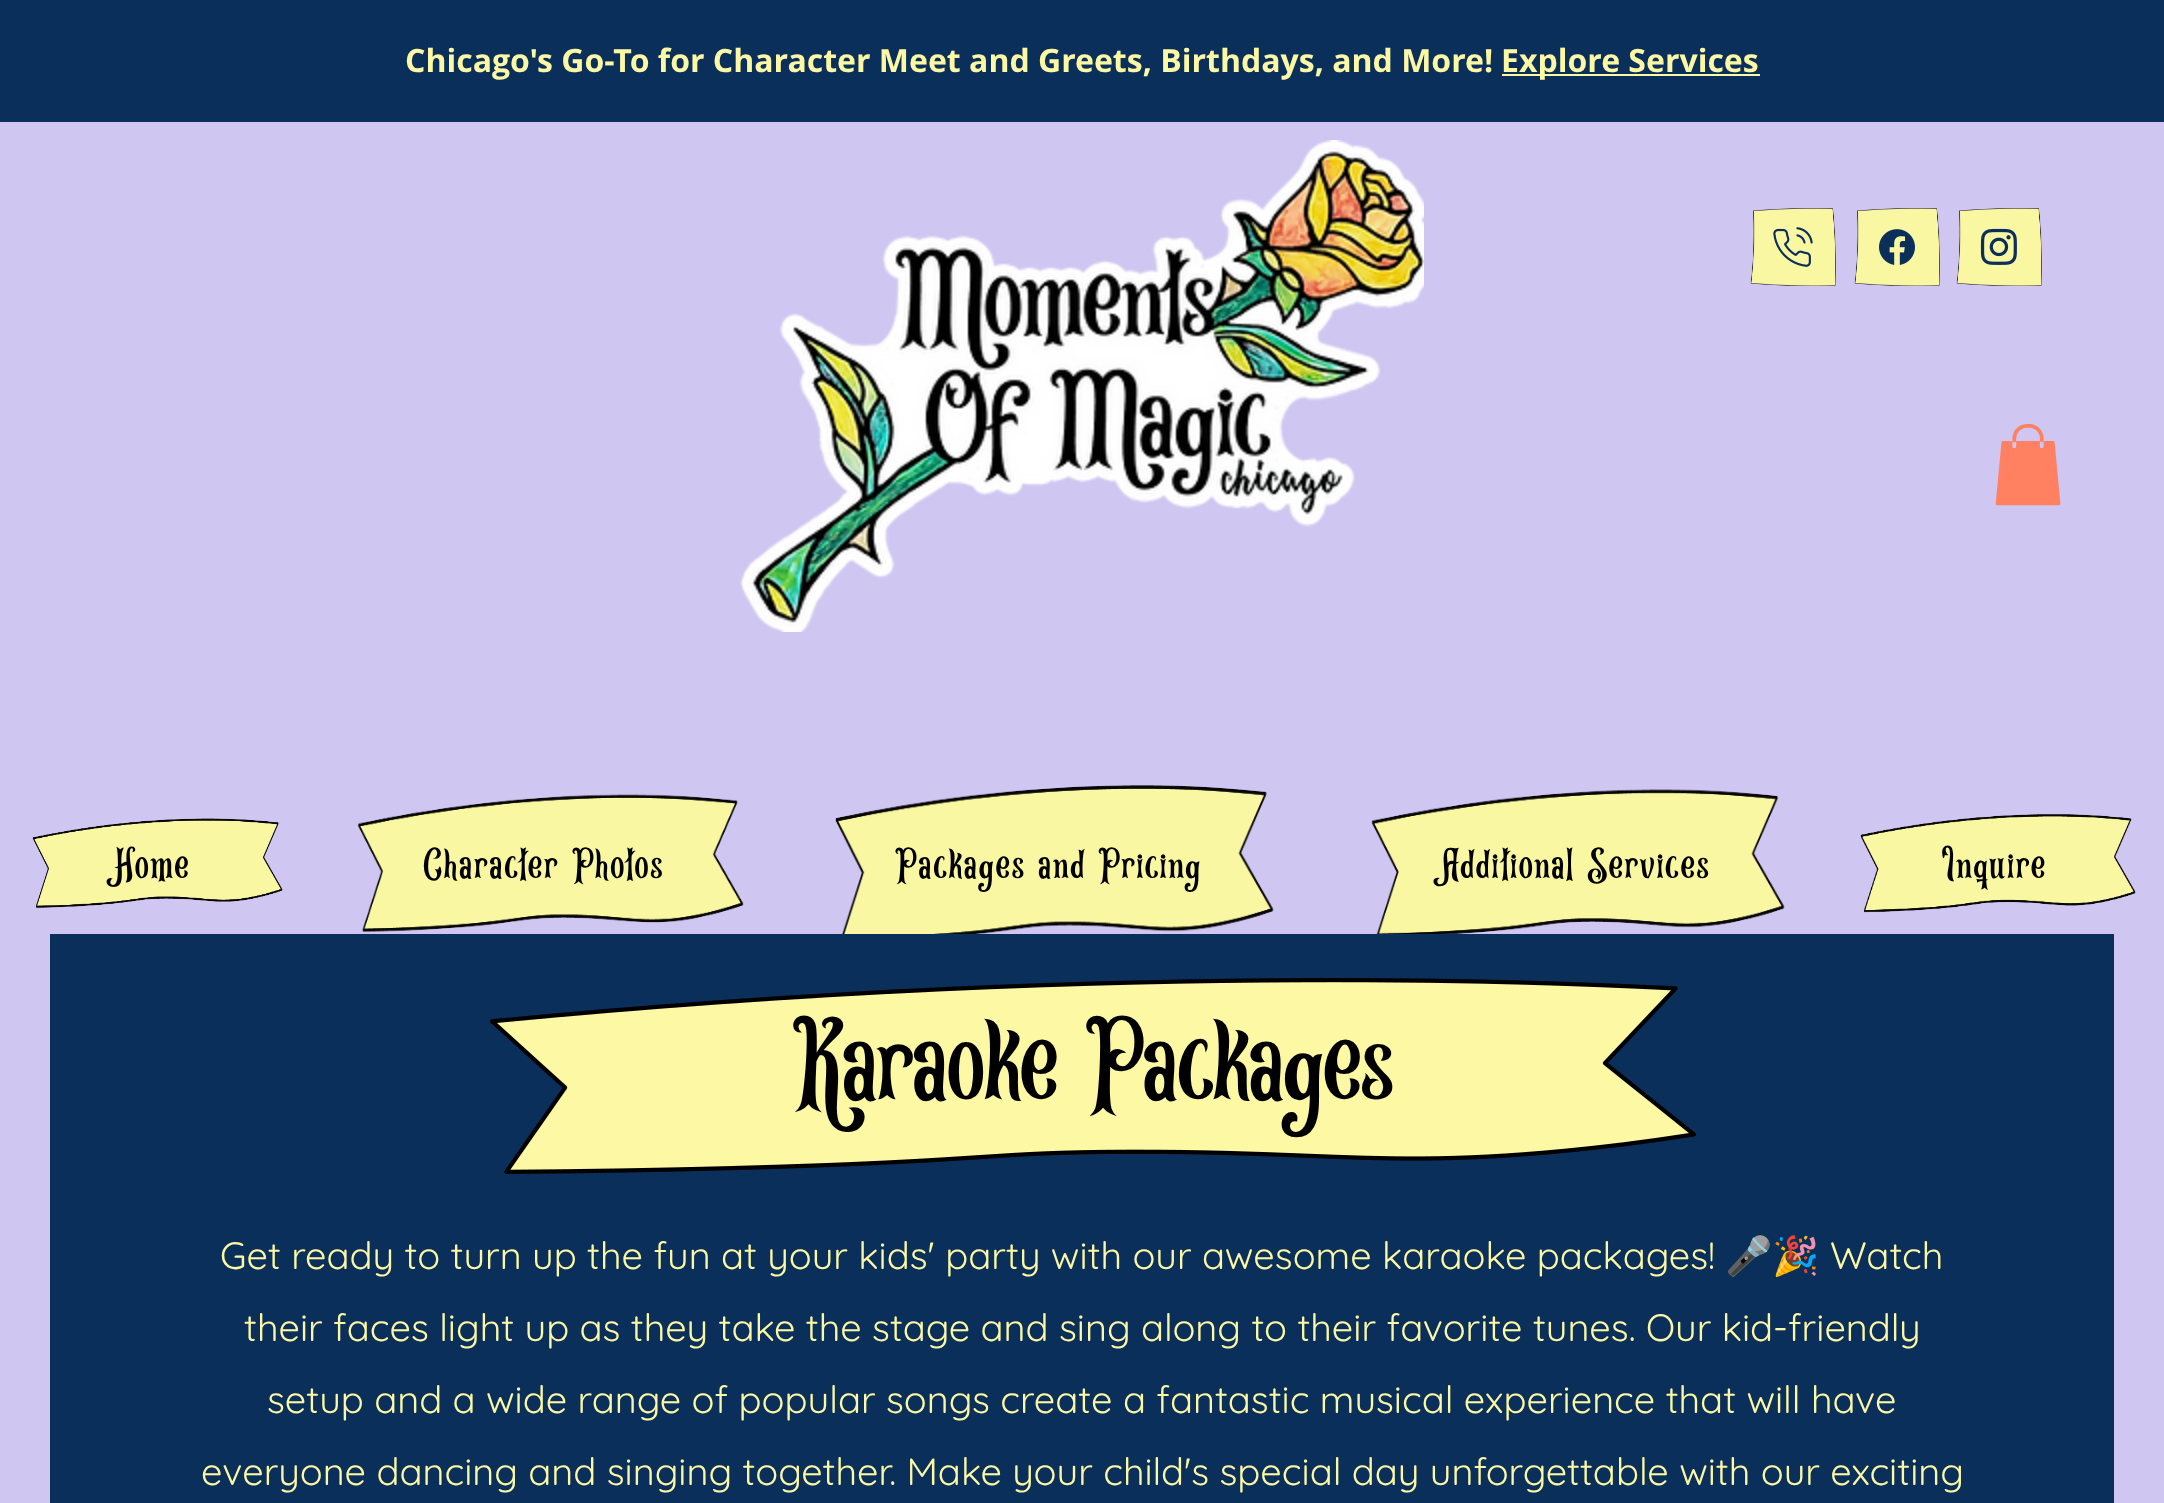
async function draw(canvas) {
  canvas.width = 2164
  canvas.height = 1503
  const ctx = canvas.getContext('2d')
  ctx.miterLimit = 4
  ctx.fontKerning = 'normal'
  async function loadImage(src) {
    const img = new Image()
    img.src = src
    await img.decode()
    return img
  }

  ctx.fillStyle = '#cfc7f2'
  ctx.fillRect(0, 0, 2164, 1503)
  ctx.fillStyle = '#0b2f5b'
  ctx.fillRect(0, 0, 2164, 122)
  ctx.font = 'bold 32px Open Sans'
  ctx.fillStyle = '#fcf8a4'
  ctx.fillText('Chicago\'s Go-To for Character Meet and Greets, Birthdays, and More!', 405, 72)
  ctx.fillRect(1502, 74, 258, 2)
  ctx.fillText('Explore Services', 1501, 72)
  ctx.drawImage(await loadImage('image0.png'), 740, 140, 684, 492)
  ctx.drawImage(await loadImage('image1.png'), 1750, 208, 86, 78)
  ctx.drawImage(await loadImage('image2.png'), 1773, 227, 40, 40)
  ctx.drawImage(await loadImage('image1.png'), 1854, 208, 86, 78)
  ctx.drawImage(await loadImage('image3.png'), 1879, 229, 36, 36)
  ctx.drawImage(await loadImage('image1.png'), 1956, 208, 86, 78)
  ctx.drawImage(await loadImage('image4.png'), 1980, 228, 37, 37)
  ctx.drawImage(await loadImage('image5.png'), 1995, 424, 66, 82)
  ctx.drawImage(await loadImage('image6.png'), 32, 818, 251, 90)
  ctx.letterSpacing = '2.25px'
  ctx.font = '44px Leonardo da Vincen'
  ctx.fillStyle = '#000'
  ctx.fillText('Home', 116, 878)
  ctx.drawImage(await loadImage('image7.png'), 357, 794, 387, 139)
  ctx.fillText('Character Photos', 424, 878)
  ctx.drawImage(await loadImage('image8.png'), 835, 785, 439, 149)
  ctx.fillText('Packages and Pricing', 896, 878)
  ctx.drawImage(await loadImage('image9.png'), 1371, 789, 414, 145)
  ctx.fillText('Additional Services', 1435, 878)
  ctx.drawImage(await loadImage('image10.png'), 1860, 814, 276, 99)
  ctx.fillText('Inquire', 1942, 878)
  ctx.fillStyle = '#0b2f5b'
  ctx.fillRect(50, 934, 2064, 569)
  ctx.drawImage(await loadImage('image11.png'), 490, 978, 1206, 196)
  ctx.letterSpacing = '0px'
  ctx.font = '120px Leonardo da Vincen'
  ctx.fillStyle = '#000'
  ctx.fillText('Karaoke Packages', 795, 1099)
  ctx.font = '38px Quicksand'
  ctx.fillStyle = '#fcf8a4'
  ctx.fillText('Get ready to turn up the fun at your kids\' party with our awesome karaoke packages!', 220, 1269)
  ctx.font = '38px Noto Color Emoji'
  ctx.fillText('🎤🎉', 1725, 1269)
  ctx.font = '38px Quicksand'
  ctx.fillText('Watch', 1830, 1269)
  ctx.fillText('their faces light up as they take the stage and sing along to their favorite tunes. Our kid-friendly', 244, 1341)
  ctx.fillText('setup and a wide range of popular songs create a fantastic musical experience that will have', 267, 1413)
  ctx.fillText('everyone dancing and singing together. Make your child\'s special day unforgettable with our exciting', 201, 1485)
}

draw(document.querySelector('canvas'))
